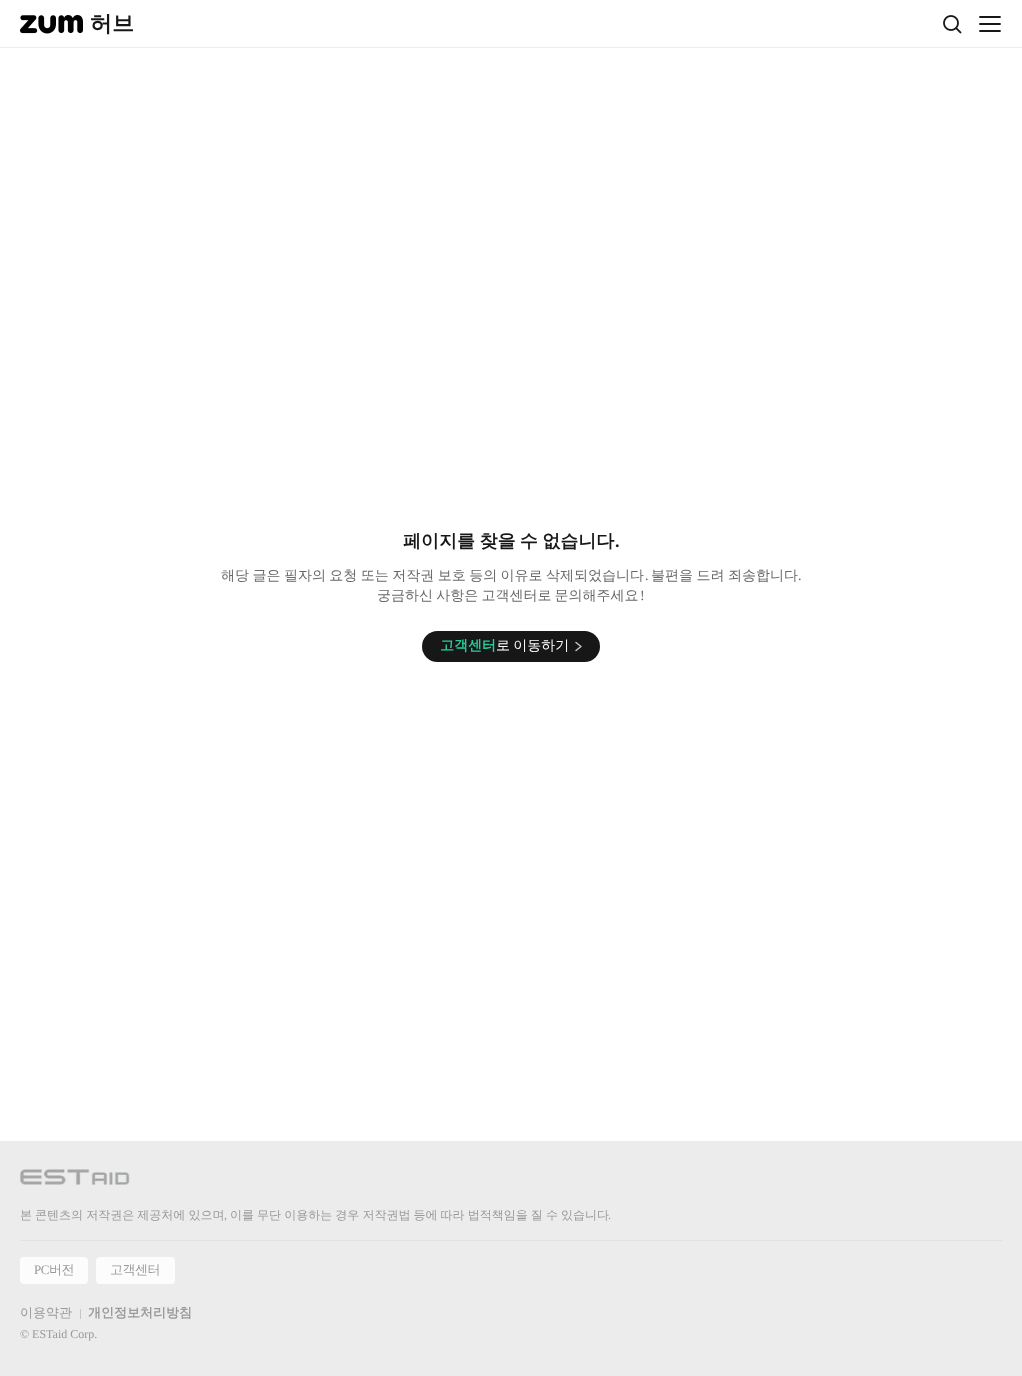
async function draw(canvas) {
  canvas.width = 1022
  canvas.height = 1376
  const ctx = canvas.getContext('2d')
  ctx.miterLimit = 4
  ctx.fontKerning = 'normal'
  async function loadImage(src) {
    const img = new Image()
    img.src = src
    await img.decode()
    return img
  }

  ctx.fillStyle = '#fff'
  ctx.fillRect(0, 0, 1022, 1376)
  ctx.fillStyle = '#ebeceb'
  ctx.fillRect(0, 47, 1022, 1)
  ctx.drawImage(await loadImage('image0.png'), 20, 15, 63, 19)
  ctx.font = 'bold 22px WenQuanYi Zen Hei'
  ctx.fillStyle = '#161716'
  ctx.fillText('허브', 90, 31)
  ctx.drawImage(await loadImage('image1.png'), 943, 15, 19, 19)
  ctx.beginPath()
  ctx.moveTo(980, 17)
  ctx.lineTo(1000, 17)
  ctx.moveTo(980, 24)
  ctx.lineTo(1000, 24)
  ctx.moveTo(980, 31)
  ctx.lineTo(1000, 31)
  ctx.strokeStyle = '#161716'
  ctx.lineWidth = 1.8
  ctx.lineCap = 'round'
  ctx.stroke()
  ctx.wordSpacing = '-1px'
  ctx.font = 'bold 18px WenQuanYi Zen Hei'
  ctx.fillText('페이지를 찾을 수 없습니다', 403, 547)
  ctx.wordSpacing = '0px'
  ctx.font = 'bold 18px Liberation Serif'
  ctx.fillText('.', 615, 547)
  ctx.wordSpacing = '-0.75px'
  ctx.font = '500 14px WenQuanYi Zen Hei'
  ctx.fillStyle = '#676867'
  ctx.fillText('해당 글은 필자의 요청 또는 저작권 보호 등의 이유로 삭제되었습니다', 221, 580)
  ctx.wordSpacing = '0px'
  ctx.font = '14px Liberation Serif'
  ctx.fillText('.', 645, 580)
  ctx.wordSpacing = '-0.75px'
  ctx.font = '500 14px WenQuanYi Zen Hei'
  ctx.fillText('불편을 드려 죄송합니다', 651, 580)
  ctx.wordSpacing = '0px'
  ctx.font = '14px Liberation Serif'
  ctx.fillText('.', 798, 580)
  ctx.wordSpacing = '-1px'
  ctx.font = '500 14px WenQuanYi Zen Hei'
  ctx.fillText('궁금하신 사항은 고객센터로 문의해주세요', 377, 600)
  ctx.wordSpacing = '0px'
  ctx.font = '14px Liberation Serif'
  ctx.fillText('!', 640, 600)
  ctx.fillStyle = '#161716'
  ctx.beginPath()
  ctx.roundRect(422, 631, 178, 31, 15.5)
  ctx.fill()
  ctx.font = 'bold 14px WenQuanYi Zen Hei'
  ctx.fillStyle = '#27cc9b'
  ctx.fillText('고객센터', 440, 650)
  ctx.wordSpacing = '-1px'
  ctx.font = '500 14px WenQuanYi Zen Hei'
  ctx.fillStyle = '#fff'
  ctx.fillText('로 이동하기', 496, 650)
  ctx.beginPath()
  ctx.moveTo(576, 650.5)
  ctx.lineTo(581, 646.5)
  ctx.lineTo(576, 642.5)
  ctx.strokeStyle = '#c5c7c5'
  ctx.lineWidth = 1.5
  ctx.lineJoin = 'round'
  ctx.stroke()
  ctx.fillStyle = '#ebeceb'
  ctx.fillRect(0, 1141, 1022, 235)
  ctx.drawImage(await loadImage('image2.png'), 20, 1169, 110, 16)
  ctx.wordSpacing = '-0.5px'
  ctx.font = '500 12px WenQuanYi Zen Hei'
  ctx.fillStyle = '#989998'
  ctx.fillText('본 콘텐츠의 저작권은 제공처에 있으며', 20, 1219)
  ctx.wordSpacing = '0px'
  ctx.font = '12px Liberation Serif'
  ctx.fillText(',', 224, 1219)
  ctx.wordSpacing = '-0.5px'
  ctx.font = '500 12px WenQuanYi Zen Hei'
  ctx.fillText('이를 무단 이용하는 경우 저작권법 등에 따라 법적책임을 질 수 있습니다', 230, 1219)
  ctx.wordSpacing = '0px'
  ctx.font = '12px Liberation Serif'
  ctx.fillText('.', 608, 1219)
  ctx.fillStyle = '#e1e3e1'
  ctx.fillRect(20, 1240, 982, 1)
  ctx.fillStyle = '#fcfcfc'
  ctx.beginPath()
  ctx.roundRect(20, 1257, 68, 27, 4)
  ctx.fill()
  ctx.letterSpacing = '-0.5px'
  ctx.font = '13px Liberation Serif'
  ctx.fillStyle = '#989998'
  ctx.fillText('PC', 34, 1274)
  ctx.font = '500 13px WenQuanYi Zen Hei'
  ctx.fillText('버전', 49, 1274)
  ctx.fillStyle = '#fcfcfc'
  ctx.beginPath()
  ctx.roundRect(96, 1257, 79, 27, 4)
  ctx.fill()
  ctx.fillStyle = '#989998'
  ctx.fillText('고객센터', 110, 1274)
  ctx.letterSpacing = '0px'
  ctx.fillText('이용약관', 20, 1317)
  ctx.fillStyle = '#c5c7c5'
  ctx.fillRect(80, 1309, 1, 10)
  ctx.font = 'bold 13px WenQuanYi Zen Hei'
  ctx.fillStyle = '#989998'
  ctx.fillText('개인정보처리방침', 88, 1317)
  ctx.font = '12px Liberation Serif'
  ctx.fillText('© ESTaid Corp.', 20, 1338)
}

draw(document.querySelector('canvas'))
